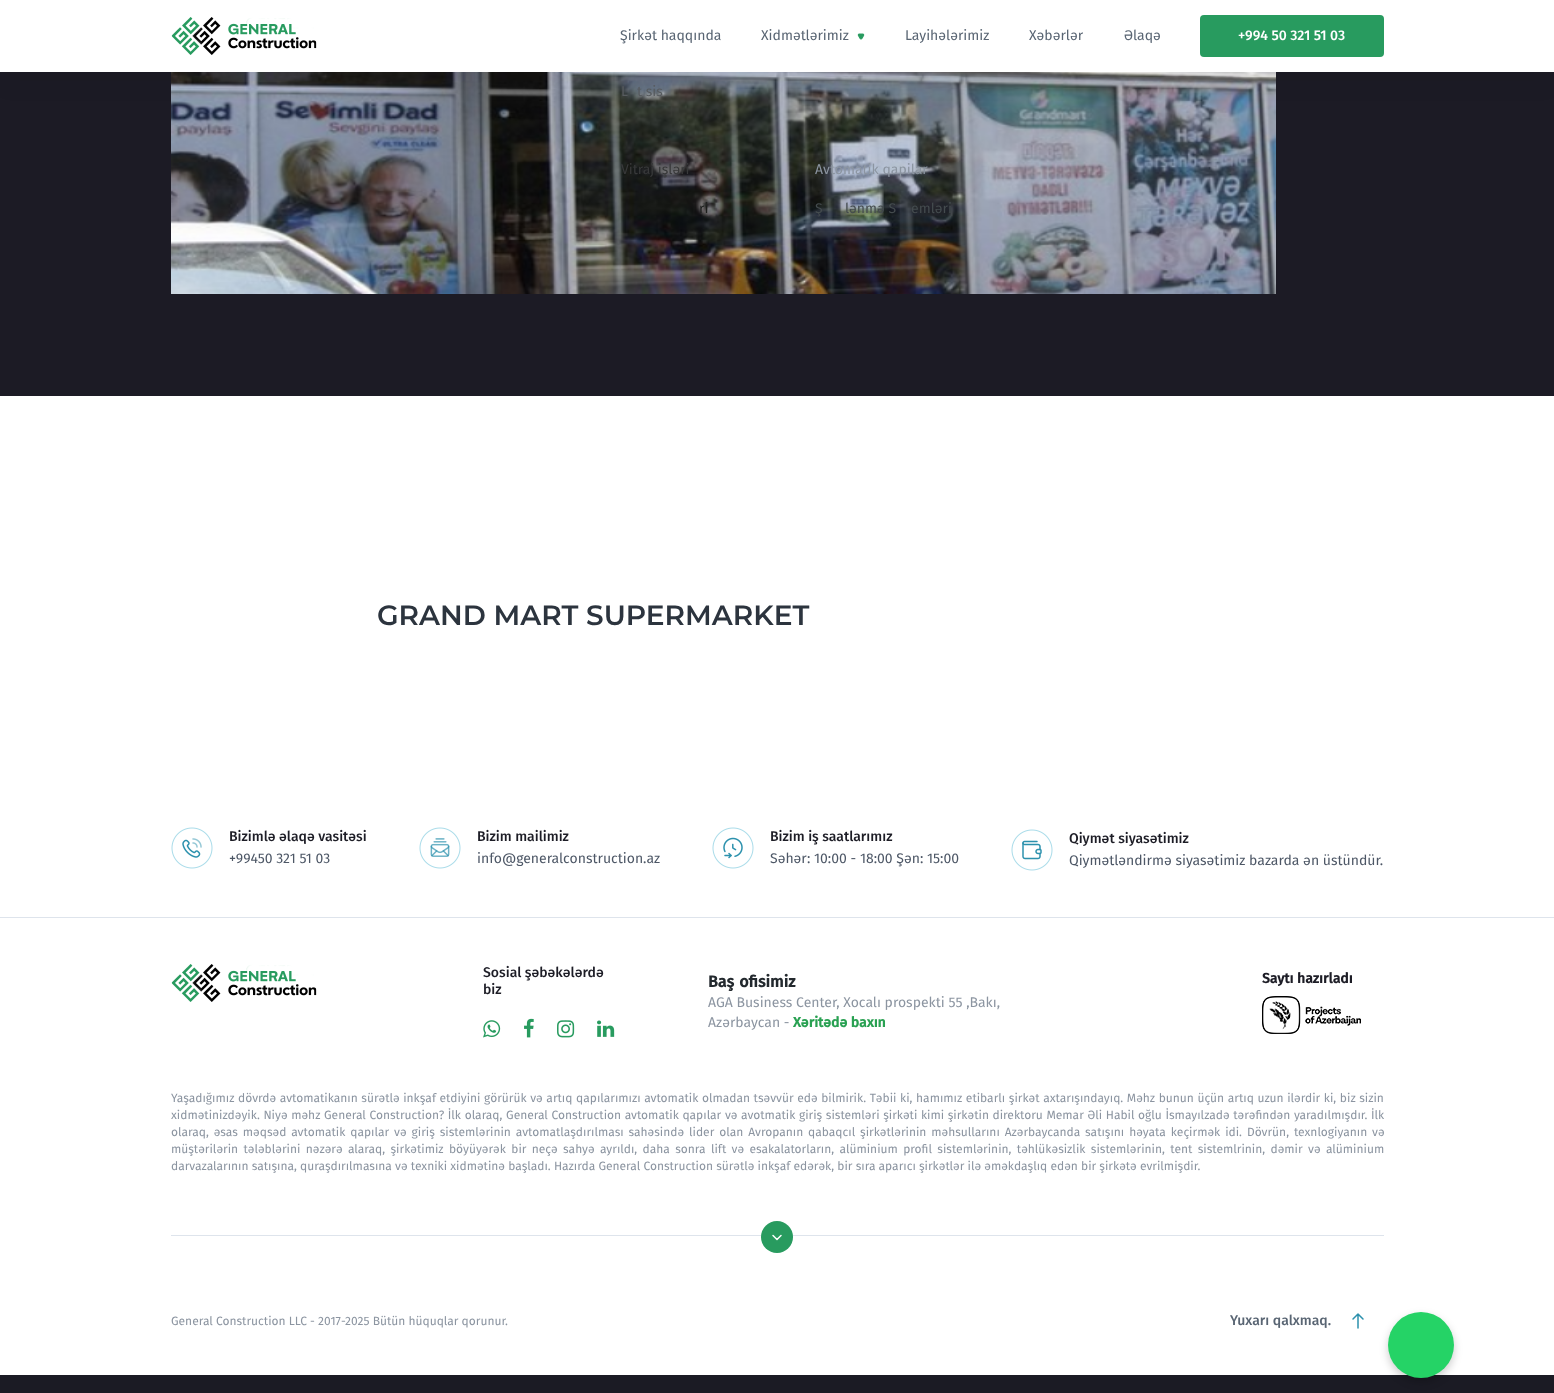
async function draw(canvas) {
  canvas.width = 1554
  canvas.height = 1393
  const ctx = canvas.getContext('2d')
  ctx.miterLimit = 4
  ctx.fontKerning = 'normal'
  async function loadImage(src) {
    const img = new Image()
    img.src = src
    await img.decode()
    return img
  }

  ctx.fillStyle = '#fff'
  ctx.fillRect(0, 0, 1554, 1393)
  ctx.fillStyle = '#1c1b25'
  ctx.fillRect(0, 72, 1554, 324)
  ctx.drawImage(await loadImage('image2.png'), 171, 72, 1105, 222)
  ctx.fillStyle = '#0000000d'
  ctx.filter = 'blur(12px)'
  ctx.beginPath()
  ctx.rect(0, 9, 1554, 72)
  ctx.fill()
  ctx.filter = 'none'
  ctx.fillStyle = '#fff'
  ctx.fillRect(0, 0, 1554, 72)
  ctx.drawImage(await loadImage('image0.png'), 171, 17, 146, 38)
  ctx.font = '14px Fira Sans'
  ctx.fillStyle = '#596573'
  ctx.fillText('Şirkət haqqında', 620, 40)
  ctx.fillText('Xidmətlərimiz', 761, 40)
  ctx.drawImage(await loadImage('image1.png'), 857, 33, 8, 7)
  ctx.fillStyle = '#575b5f'
  ctx.fillText('L', 621, 96)
  ctx.fillText('t sis', 637, 96)
  ctx.fillStyle = '#38393a'
  ctx.fillText('Vitraj işləri', 621, 174)
  ctx.fillStyle = '#8c95a1'
  ctx.fillText('Avtomatik qapilar', 815, 174)
  ctx.fillStyle = '#1c1e1c'
  ctx.fillText('ri', 699, 213)
  ctx.fillStyle = '#444b4e'
  ctx.fillText('Ş', 815, 213)
  ctx.fillText('lənmə S', 845, 213)
  ctx.fillText('emləri', 911, 213)
  ctx.fillStyle = '#596573'
  ctx.fillText('Layihələrimiz', 905, 40)
  ctx.fillText('Xəbərlər', 1029, 40)
  ctx.fillText('Əlaqə', 1124, 40)
  ctx.fillStyle = '#289b5f'
  ctx.beginPath()
  ctx.roundRect(1200, 15, 184, 42, 4)
  ctx.fill()
  ctx.font = '500 14px Fira Sans'
  ctx.fillStyle = '#fff'
  ctx.fillText('+994 50 321 51 03', 1238, 40)
  ctx.font = '600 28px Montserrat'
  ctx.fillStyle = '#2c343e'
  ctx.fillText('GRAND MART SUPERMARKET', 377, 625)
  ctx.fillStyle = '#dee4ec'
  ctx.fillRect(0, 917, 1554, 1)
  ctx.drawImage(await loadImage('image3.png'), 171, 827, 42, 42)
  ctx.font = '500 14px Fira Sans'
  ctx.fillStyle = '#1d1d26'
  ctx.fillText('Bizimlə əlaqə vasitəsi', 229, 841)
  ctx.font = '14px Fira Sans'
  ctx.fillStyle = '#4d5766'
  ctx.fillText('+99450 321 51 03', 229, 863)
  ctx.drawImage(await loadImage('image4.png'), 419, 827, 42, 42)
  ctx.font = '500 14px Fira Sans'
  ctx.fillStyle = '#1d1d26'
  ctx.fillText('Bizim mailimiz', 477, 841)
  ctx.font = '14px Fira Sans'
  ctx.fillStyle = '#4d5766'
  ctx.fillText('info@generalconstruction.az', 477, 863)
  ctx.drawImage(await loadImage('image5.png'), 712, 827, 42, 42)
  ctx.font = '500 14px Fira Sans'
  ctx.fillStyle = '#1d1d26'
  ctx.fillText('Bizim iş saatlarımız', 770, 841)
  ctx.font = '14px Fira Sans'
  ctx.fillStyle = '#4d5766'
  ctx.fillText('Səhər: 10:00 - 18:00 Şən: 15:00', 770, 863)
  ctx.drawImage(await loadImage('image6.png'), 1011, 829, 42, 42)
  ctx.font = '500 14px Fira Sans'
  ctx.fillStyle = '#1d1d26'
  ctx.fillText('Qiymət siyasətimiz', 1069, 843)
  ctx.font = '14px Fira Sans'
  ctx.fillStyle = '#4d5766'
  ctx.fillText('Qiymətləndirmə siyasətimiz bazarda ən üstündür.', 1069, 865)
  ctx.drawImage(await loadImage('image0.png'), 171, 964, 146, 38)
  ctx.font = '500 14px Fira Sans'
  ctx.fillStyle = '#1d1d26'
  ctx.fillText('Sosial şəbəkələrdə', 483, 977)
  ctx.fillText('biz', 483, 994)
  ctx.drawImage(await loadImage('image7.png'), 483, 1020, 18, 18)
  ctx.drawImage(await loadImage('image8.png'), 524, 1018, 10, 20)
  ctx.drawImage(await loadImage('image9.png'), 557, 1020, 18, 18)
  ctx.drawImage(await loadImage('image10.png'), 597, 1020, 18, 17)
  ctx.wordSpacing = '1px'
  ctx.font = 'bold 16px Fira Sans'
  ctx.fillStyle = '#23292e'
  ctx.fillText('Baş ofisimiz', 708, 987)
  ctx.wordSpacing = '0px'
  ctx.font = '14px Fira Sans'
  ctx.fillStyle = '#8c95a1'
  ctx.fillText('AGA Business Center, Xocalı prospekti 55 ,Bakı,', 708, 1007)
  ctx.fillText('Azərbaycan -', 708, 1027)
  ctx.font = 'bold 14px Fira Sans'
  ctx.fillStyle = '#29a152'
  ctx.fillText('Xəritədə baxın', 793, 1027)
  ctx.fillStyle = '#1d1d26'
  ctx.fillText('Saytı hazırladı', 1262, 983)
  ctx.drawImage(await loadImage('image11.png'), 1262, 996, 99, 38)
  ctx.fillStyle = '#dee4ec'
  ctx.fillRect(171, 1235, 1213, 1)
  ctx.wordSpacing = '0.45px'
  ctx.font = '12px Fira Sans'
  ctx.fillStyle = '#8c95a1'
  ctx.fillText('Yaşadığımız dövrdə avtomatikanın sürətlə inkşaf etdiyini görürük və artıq qapılarımızı avtomatik olmadan tsəvvür edə bilmirik. Təbii ki, hamımız etibarlı şirkət axtarışındayıq. Məhz bunun üçün artıq uzun ilərdir ki, biz sizin', 171, 1102)
  ctx.fillText('xidmətinizdəyik. Niyə məhz General Construction? İlk olaraq, General Construction avtomatik qapılar və avotmatik giriş sistemləri şirkəti kimi şirkətin direktoru Memar Əli Habil oğlu İsmayılzadə tərəfindən yaradılmışdır. İlk', 171, 1119)
  ctx.wordSpacing = '1.75px'
  ctx.fillText('olaraq, əsas məqsəd avtomatik qapılar və giriş sistemlərinin avtomatlaşdırılması sahəsində lider olan Avropanın qabaqcıl şirkətlərinin məhsullarını Azərbaycanda satışını həyata keçirmək idi. Dövrün, texnlogiyanın və', 171, 1136)
  ctx.wordSpacing = '2.2px'
  ctx.fillText('müştərilərin tələblərini nəzərə alaraq, şirkətimiz böyüyərək bir neçə sahyə ayrıldı, daha sonra lift və esakalatorların, alüminium profil sistemlərinin, təhlükəsizlik sistemlərinin, tent sistemlrinin, dəmir və alüminium', 171, 1153)
  ctx.wordSpacing = '0px'
  ctx.fillText('darvazalarının satışına, quraşdırılmasına və texniki xidmətinə başladı. Hazırda General Construction sürətlə inkşaf edərək, bir sıra aparıcı şirkətlər ilə əməkdaşlıq edən bir şirkətə evrilmişdir.', 171, 1170)
  ctx.fillStyle = '#289b5f'
  ctx.beginPath()
  ctx.arc(777, 1237, 16, 0, 2 * Math.PI)
  ctx.fill()
  ctx.beginPath()
  ctx.moveTo(781, 1235.5)
  ctx.lineTo(777, 1239.5)
  ctx.lineTo(773, 1235.5)
  ctx.strokeStyle = '#fff'
  ctx.lineWidth = 1.5
  ctx.lineCap = 'round'
  ctx.lineJoin = 'round'
  ctx.stroke()
  ctx.fillStyle = '#8c95a1'
  ctx.fillText('General Construction LLC - 2017-2025 Bütün hüquqlar qorunur.', 171, 1325)
  ctx.font = '500 14px Fira Sans'
  ctx.fillStyle = '#596573'
  ctx.fillText('Yuxarı qalxmaq.', 1230, 1325)
  ctx.beginPath()
  ctx.moveTo(1358, 1314)
  ctx.lineTo(1358, 1328)
  ctx.moveTo(1353, 1319)
  ctx.lineTo(1358, 1314)
  ctx.lineTo(1363, 1319)
  ctx.strokeStyle = '#2c91ad'
  ctx.stroke()
  ctx.fillStyle = '#1b1b24'
  ctx.fillRect(0, 1375, 1554, 18)
  ctx.fillStyle = '#00000033'
  ctx.filter = 'blur(4px)'
  ctx.beginPath()
  ctx.roundRect(1388, 1316, 66, 66, 33)
  ctx.fill()
  ctx.filter = 'none'
  ctx.fillStyle = '#25d366'
  ctx.beginPath()
  ctx.arc(1421, 1345, 33, 0, 2 * Math.PI)
  ctx.fill()
}

draw(document.querySelector('canvas'))
